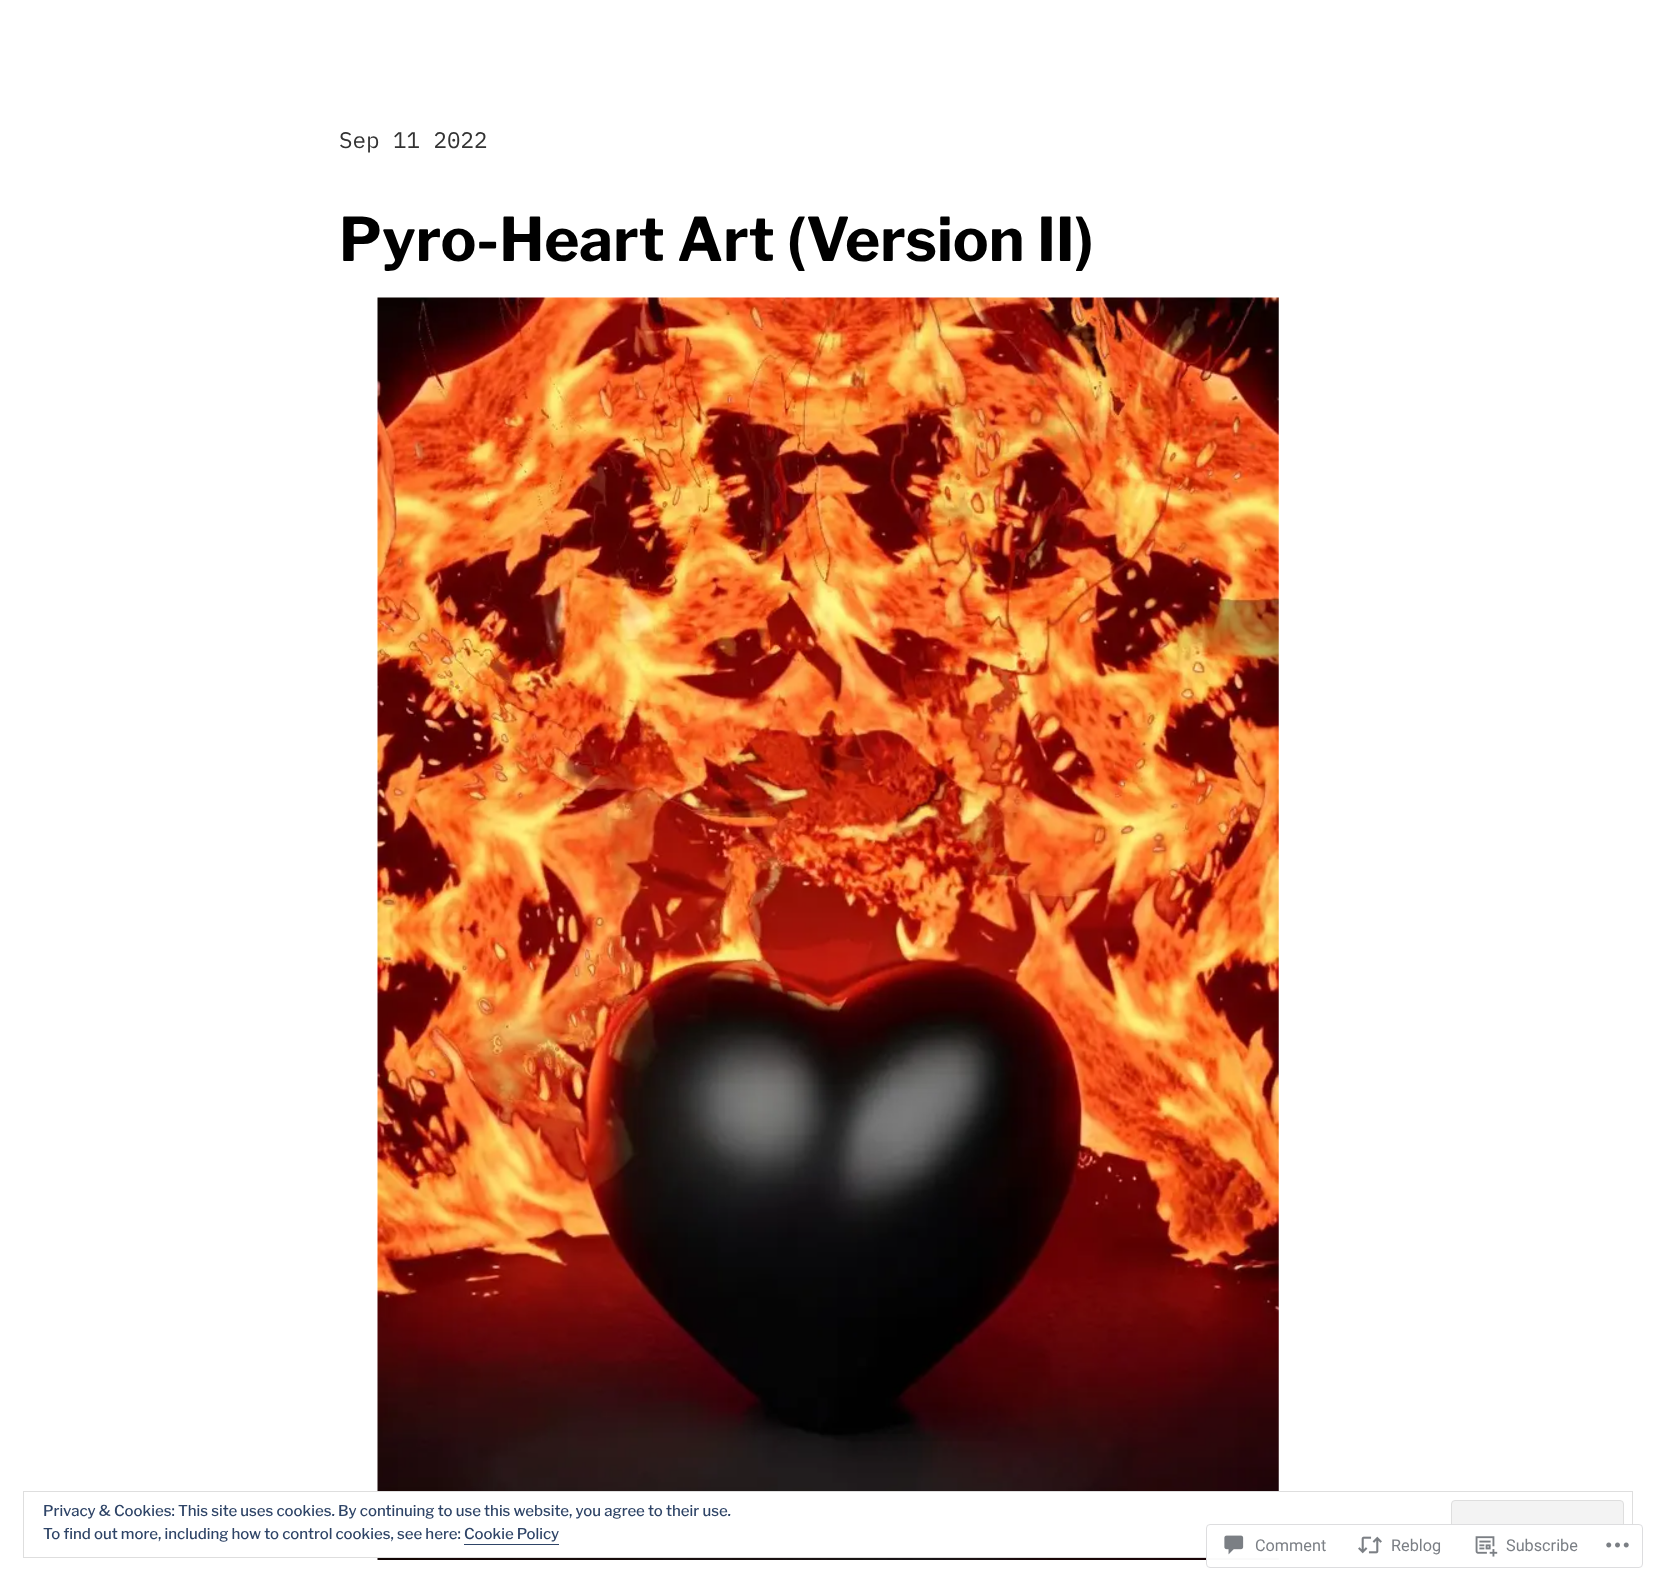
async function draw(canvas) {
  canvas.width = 1654
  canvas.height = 1579
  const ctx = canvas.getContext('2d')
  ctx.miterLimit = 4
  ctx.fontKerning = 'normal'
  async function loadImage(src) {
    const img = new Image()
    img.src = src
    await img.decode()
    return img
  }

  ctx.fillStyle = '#fff'
  ctx.fillRect(0, 0, 1654, 1579)
  ctx.font = '22.5px IBM Plex Mono'
  ctx.fillStyle = '#333'
  ctx.fillText('Sep 11 2022', 339, 148)
  ctx.font = 'bold 60px Libre Franklin'
  ctx.fillStyle = '#000'
  ctx.fillText('Pyro-Heart Art (Version II)', 339, 261)
  ctx.drawImage(await loadImage('image0.png'), 377, 297, 902, 1263)
  ctx.fillStyle = '#fff'
  ctx.fillRect(377, 1492, 902, 65)
  ctx.strokeStyle = '#dedede'
  ctx.strokeRect(23.5, 1491.5, 1609, 66)
  ctx.font = '500 15px Libre Franklin'
  ctx.fillStyle = '#2e4467'
  ctx.fillText('Privacy & Cookies: This site uses cookies. By continuing to use this website, you agree to their use.', 43, 1516)
  ctx.fillStyle = '#f3f3f3'
  ctx.beginPath()
  ctx.roundRect(1451.5, 1500.5, 172, 48, 3.5)
  ctx.fill()
  ctx.stroke()
  ctx.fillStyle = '#2e4467'
  ctx.fillText('To find out more, including how to control cookies, see here: Cookie Policy', 43, 1539)
  ctx.fillRect(464, 1544, 95, 1)
  ctx.fillStyle = '#fffffffa'
  ctx.beginPath()
  ctx.roundRect(1206, 1524, 437, 44, 4)
  ctx.fill()
  ctx.beginPath()
  ctx.roundRect(1206.5, 1524.5, 436, 43, 3.5)
  ctx.strokeStyle = '#dcdcdefa'
  ctx.stroke()
  ctx.drawImage(await loadImage('image1.png'), 1224, 1535, 20, 20)
  ctx.font = '16.25px Roboto'
  ctx.fillStyle = '#7b7f85'
  ctx.fillText('Comment', 1255, 1551)
  ctx.drawImage(await loadImage('image2.png'), 1358, 1536, 24, 18)
  ctx.fillText('Reblog', 1391, 1551)
  ctx.drawImage(await loadImage('image3.png'), 1475, 1536, 23, 21)
  ctx.fillText('Subscribe', 1506, 1551)
  ctx.drawImage(await loadImage('image4.png'), 1606, 1542, 23, 6)
}

draw(document.querySelector('canvas'))
